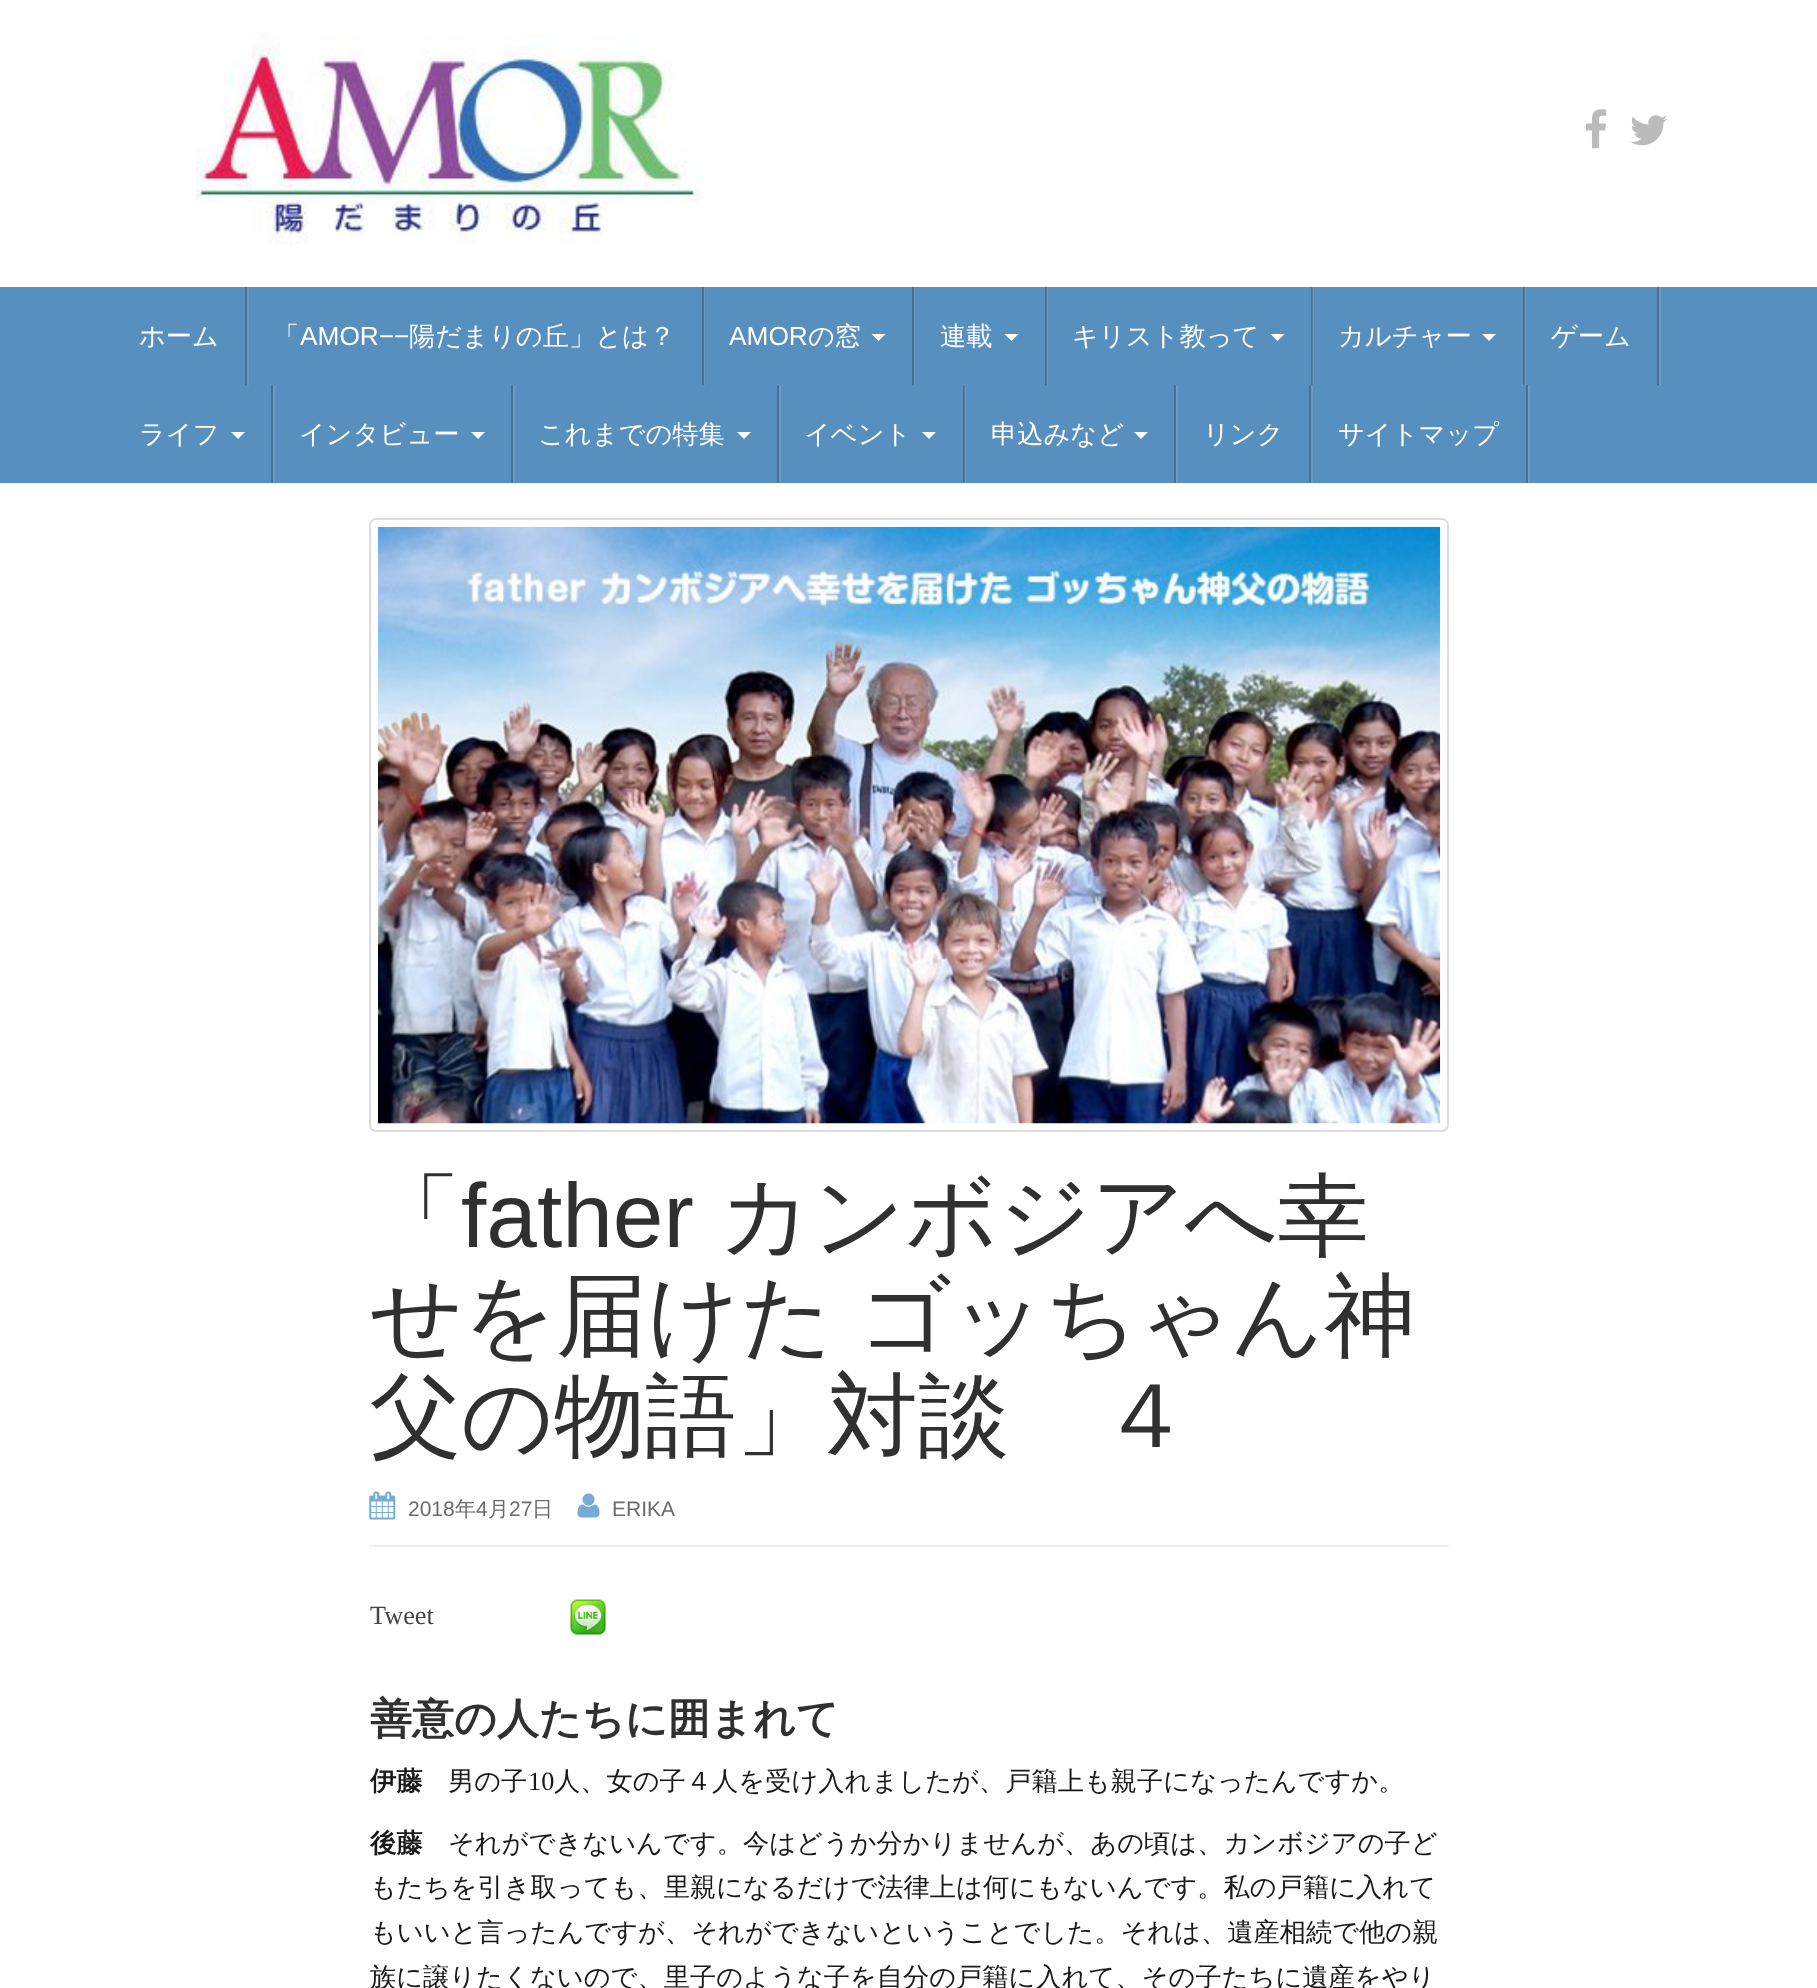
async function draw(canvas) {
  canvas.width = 1817
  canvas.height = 1988
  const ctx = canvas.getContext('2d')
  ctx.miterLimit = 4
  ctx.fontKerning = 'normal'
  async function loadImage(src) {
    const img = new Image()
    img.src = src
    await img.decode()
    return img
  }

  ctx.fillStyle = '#fff'
  ctx.fillRect(0, 0, 1817, 1988)
  ctx.drawImage(await loadImage('image0.png'), 195, 35, 506, 210)
  ctx.drawImage(await loadImage('image1.png'), 1586, 109, 21, 40)
  ctx.drawImage(await loadImage('image2.png'), 1630, 115, 37, 31)
  ctx.fillStyle = '#578fbf'
  ctx.fillRect(0, 287, 1817, 196)
  ctx.fillStyle = '#467299'
  ctx.fillRect(963, 385, 1, 98)
  ctx.fillRect(1523, 287, 1, 98)
  ctx.fillRect(1311, 287, 1, 98)
  ctx.fillRect(1045, 287, 1, 98)
  ctx.fillStyle = '#689ac5'
  ctx.fillRect(247, 287, 2, 98)
  ctx.fillStyle = '#467299'
  ctx.fillRect(245, 287, 2, 98)
  ctx.font = '500 26.25px WenQuanYi Zen Hei'
  ctx.fillStyle = '#fff'
  ctx.fillText('ホーム', 139, 345)
  ctx.fillStyle = '#689ac5'
  ctx.fillRect(704, 287, 1, 98)
  ctx.fillStyle = '#467299'
  ctx.fillRect(702, 287, 2, 98)
  ctx.fillStyle = '#fff'
  ctx.fillText('「', 273, 345)
  ctx.font = '26.25px Liberation Sans'
  ctx.fillText('AMOR−−', 300, 345)
  ctx.font = '500 26.25px WenQuanYi Zen Hei'
  ctx.fillText('陽だまりの丘」とは？', 409, 345)
  ctx.fillStyle = '#689ac5'
  ctx.fillRect(914, 287, 1, 98)
  ctx.fillStyle = '#467299'
  ctx.fillRect(912, 287, 2, 98)
  ctx.font = '26.25px Liberation Sans'
  ctx.fillStyle = '#fff'
  ctx.fillText('AMOR', 729, 345)
  ctx.font = '500 26.25px WenQuanYi Zen Hei'
  ctx.fillText('の窓', 808, 345)
  ctx.beginPath()
  ctx.moveTo(871.5, 334)
  ctx.lineTo(885.5, 334)
  ctx.lineTo(878.5, 341)
  ctx.closePath()
  ctx.fill()
  ctx.fillStyle = '#689ac5'
  ctx.fillRect(1047, 287, 1, 98)
  ctx.fillStyle = '#537b9e'
  ctx.fillRect(1046, 287, 1, 98)
  ctx.fillStyle = '#fff'
  ctx.fillText('連載', 940, 345)
  ctx.beginPath()
  ctx.moveTo(1004.5, 334)
  ctx.lineTo(1018.5, 334)
  ctx.lineTo(1011.5, 341)
  ctx.closePath()
  ctx.fill()
  ctx.fillStyle = '#689ac5'
  ctx.fillRect(1313, 287, 1, 98)
  ctx.fillStyle = '#537b9e'
  ctx.fillRect(1312, 287, 1, 98)
  ctx.fillStyle = '#fff'
  ctx.fillText('キリスト教って', 1072, 345)
  ctx.beginPath()
  ctx.moveTo(1270.5, 334)
  ctx.lineTo(1284.5, 334)
  ctx.lineTo(1277.5, 341)
  ctx.closePath()
  ctx.fill()
  ctx.fillStyle = '#689ac5'
  ctx.fillRect(1525, 287, 1, 98)
  ctx.fillStyle = '#537b9e'
  ctx.fillRect(1524, 287, 1, 98)
  ctx.fillStyle = '#fff'
  ctx.fillText('カルチャー', 1338, 345)
  ctx.beginPath()
  ctx.moveTo(1482, 334)
  ctx.lineTo(1496, 334)
  ctx.lineTo(1489, 341)
  ctx.closePath()
  ctx.fill()
  ctx.fillStyle = '#689ac5'
  ctx.fillRect(1659, 287, 2, 98)
  ctx.fillStyle = '#467299'
  ctx.fillRect(1657, 287, 2, 98)
  ctx.fillStyle = '#fff'
  ctx.fillText('ゲーム', 1551, 345)
  ctx.fillStyle = '#689ac5'
  ctx.fillRect(273, 385, 2, 98)
  ctx.fillStyle = '#467299'
  ctx.fillRect(271, 385, 2, 98)
  ctx.fillStyle = '#fff'
  ctx.fillText('ライフ', 139, 443)
  ctx.beginPath()
  ctx.moveTo(231, 432)
  ctx.lineTo(245, 432)
  ctx.lineTo(238, 439)
  ctx.closePath()
  ctx.fill()
  ctx.fillStyle = '#689ac5'
  ctx.fillRect(513, 385, 2, 98)
  ctx.fillStyle = '#467299'
  ctx.fillRect(511, 385, 2, 98)
  ctx.fillStyle = '#fff'
  ctx.fillText('インタビュー', 299, 443)
  ctx.beginPath()
  ctx.moveTo(471, 432)
  ctx.lineTo(485, 432)
  ctx.lineTo(478, 439)
  ctx.closePath()
  ctx.fill()
  ctx.fillStyle = '#689ac5'
  ctx.fillRect(779, 385, 2, 98)
  ctx.fillStyle = '#467299'
  ctx.fillRect(777, 385, 2, 98)
  ctx.fillStyle = '#fff'
  ctx.fillText('これまでの特集', 538, 443)
  ctx.beginPath()
  ctx.moveTo(737, 432)
  ctx.lineTo(751, 432)
  ctx.lineTo(744, 439)
  ctx.closePath()
  ctx.fill()
  ctx.fillStyle = '#689ac5'
  ctx.fillRect(965, 385, 1, 98)
  ctx.fillStyle = '#537b9e'
  ctx.fillRect(964, 385, 1, 98)
  ctx.fillStyle = '#fff'
  ctx.fillText('イベント', 804, 443)
  ctx.beginPath()
  ctx.moveTo(922, 432)
  ctx.lineTo(936, 432)
  ctx.lineTo(929, 439)
  ctx.closePath()
  ctx.fill()
  ctx.fillStyle = '#689ac5'
  ctx.fillRect(1176, 385, 2, 98)
  ctx.fillStyle = '#467299'
  ctx.fillRect(1174, 385, 2, 98)
  ctx.fillStyle = '#fff'
  ctx.fillText('申込みなど', 991, 443)
  ctx.beginPath()
  ctx.moveTo(1134, 432)
  ctx.lineTo(1148, 432)
  ctx.lineTo(1141, 439)
  ctx.closePath()
  ctx.fill()
  ctx.fillStyle = '#689ac5'
  ctx.fillRect(1311, 385, 2, 98)
  ctx.fillStyle = '#467299'
  ctx.fillRect(1309, 385, 2, 98)
  ctx.fillStyle = '#fff'
  ctx.fillText('リンク', 1203, 443)
  ctx.fillStyle = '#689ac5'
  ctx.fillRect(1528, 385, 2, 98)
  ctx.fillStyle = '#467299'
  ctx.fillRect(1526, 385, 2, 98)
  ctx.fillStyle = '#fff'
  ctx.fillText('サイトマップ', 1338, 443)
  ctx.fillStyle = '#eee'
  ctx.fillRect(369, 1545, 1080, 2)
  ctx.beginPath()
  ctx.roundRect(370, 519, 1078, 612, 6)
  ctx.strokeStyle = '#ddd'
  ctx.lineWidth = 2
  ctx.stroke()
  ctx.drawImage(await loadImage('image3.png'), 378, 526, 1063, 598)
  ctx.font = '500 91px WenQuanYi Zen Hei'
  ctx.fillStyle = '#303030'
  ctx.fillText('「', 370, 1247)
  ctx.font = '91px Liberation Sans'
  ctx.fillText('father', 461, 1247)
  ctx.font = '500 91px WenQuanYi Zen Hei'
  ctx.fillText('カンボジアへ幸', 719, 1247)
  ctx.wordSpacing = '-2px'
  ctx.fillText('せを届けた ゴッちゃん神', 370, 1347)
  ctx.wordSpacing = '0px'
  ctx.fillText('父の物語」対談　４', 370, 1447)
  ctx.drawImage(await loadImage('image4.png'), 369, 1491, 27, 29)
  ctx.font = '21px Liberation Sans'
  ctx.fillStyle = '#6b6b6b'
  ctx.fillText('2018', 408, 1516)
  ctx.font = '500 21px WenQuanYi Zen Hei'
  ctx.fillText('年', 455, 1516)
  ctx.font = '21px Liberation Sans'
  ctx.fillText('4', 476, 1516)
  ctx.font = '500 21px WenQuanYi Zen Hei'
  ctx.fillText('月', 488, 1516)
  ctx.font = '21px Liberation Sans'
  ctx.fillText('27', 509, 1516)
  ctx.font = '500 21px WenQuanYi Zen Hei'
  ctx.fillText('日', 532, 1516)
  ctx.drawImage(await loadImage('image5.png'), 577, 1493, 23, 25)
  ctx.font = '21px Liberation Sans'
  ctx.fillText('ERIKA', 612, 1516)
  ctx.font = '26.25px Liberation Serif'
  ctx.fillStyle = '#444'
  ctx.fillText('Tweet', 370, 1624)
  ctx.drawImage(await loadImage('image6.png'), 570, 1599, 36, 36)
  ctx.font = 'bold 42px WenQuanYi Zen Hei'
  ctx.fillStyle = '#303030'
  ctx.fillText('善意の人たちに囲まれて', 370, 1733)
  ctx.font = 'bold 26.25px WenQuanYi Zen Hei'
  ctx.fillStyle = '#191919'
  ctx.fillText('伊藤', 370, 1790)
  ctx.font = '500 26.25px WenQuanYi Zen Hei'
  ctx.fillText('男の子', 448, 1790)
  ctx.font = '26.25px Liberation Serif'
  ctx.fillText('10', 528, 1790)
  ctx.font = '500 26.25px WenQuanYi Zen Hei'
  ctx.fillText('人、女の子４人を受け入れましたが、戸籍上も親子になったんですか。', 554, 1790)
  ctx.font = 'bold 26.25px WenQuanYi Zen Hei'
  ctx.fillText('後藤', 370, 1852)
  ctx.font = '500 26.25px WenQuanYi Zen Hei'
  ctx.fillText('それができないんです。今はどうか分かりませんが、あの頃は、カンボジアの子ど', 448, 1852)
  ctx.fillText('もたちを引き取っても、里親になるだけで法律上は何にもないんです。私の戸籍に入れて', 370, 1896)
  ctx.fillText('もいいと言ったんですが、それができないということでした。それは、遺産相続で他の親', 370, 1941)
  ctx.fillText('族に譲りたくないので、里子のような子を自分の戸籍に入れて、その子たちに遺産をやり', 370, 1986)
}

draw(document.querySelector('canvas'))
